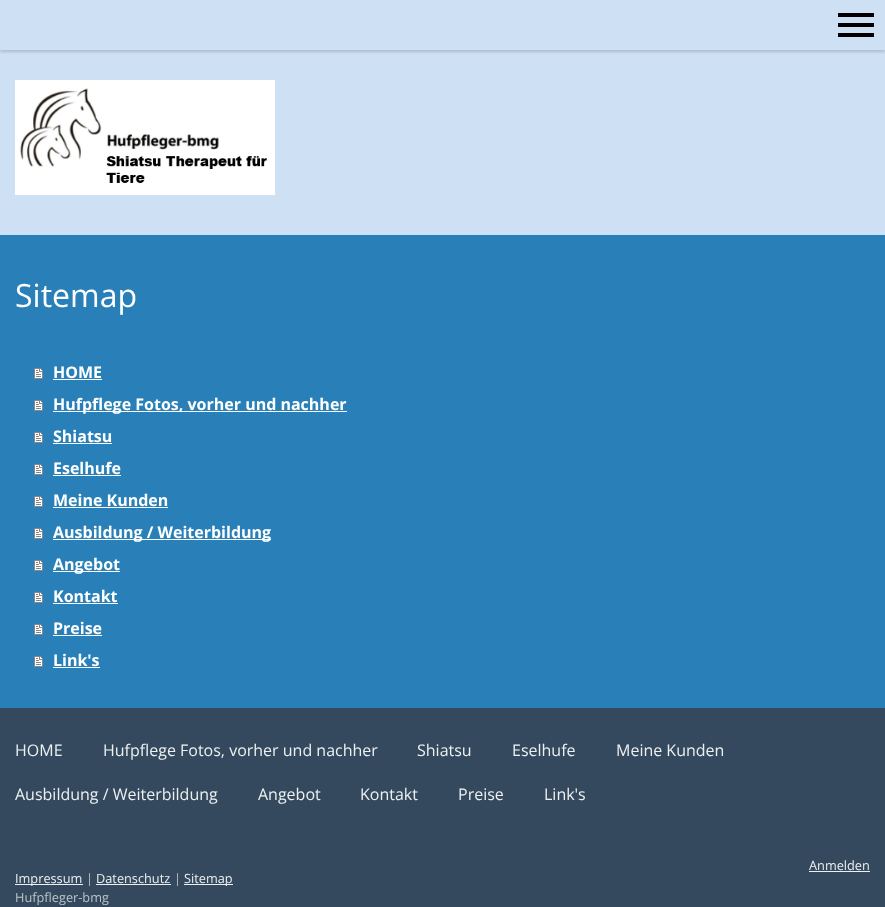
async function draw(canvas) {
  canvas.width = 885
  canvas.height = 907
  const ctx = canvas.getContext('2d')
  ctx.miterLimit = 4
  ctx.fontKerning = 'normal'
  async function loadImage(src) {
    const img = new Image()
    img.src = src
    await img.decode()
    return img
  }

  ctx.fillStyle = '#cee1f4'
  ctx.fillRect(0, 0, 885, 907)
  ctx.save()
  ctx.beginPath()
  ctx.rect(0, 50, 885, 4)
  ctx.clip()
  ctx.fillStyle = '#00000029'
  ctx.filter = 'blur(1.5px)'
  ctx.beginPath()
  ctx.rect(0, 2, 885, 50)
  ctx.fill()
  ctx.filter = 'none'
  ctx.restore()
  ctx.fillStyle = '#000'
  ctx.fillRect(838, 23, 36, 4)
  ctx.fillRect(838, 13, 36, 4)
  ctx.fillRect(838, 33, 36, 4)
  ctx.drawImage(await loadImage('image0.png'), 15, 80, 260, 115)
  ctx.fillStyle = '#2980b9'
  ctx.fillRect(0, 235, 885, 473)
  ctx.font = '32px Open Sans'
  ctx.fillStyle = '#fff'
  ctx.fillText('Sitemap', 15, 307)
  ctx.drawImage(await loadImage('image1.png'), 34, 368, 9, 11)
  ctx.font = 'bold 16px Open Sans'
  ctx.fillText('HOME', 53, 378)
  ctx.fillRect(53, 379, 49, 1)
  ctx.drawImage(await loadImage('image1.png'), 34, 400, 9, 11)
  ctx.fillRect(53, 411, 294, 1)
  ctx.fillText('Hufpflege Fotos, vorher und nachher', 53, 410)
  ctx.drawImage(await loadImage('image1.png'), 34, 432, 9, 11)
  ctx.fillText('Shiatsu', 53, 442)
  ctx.fillRect(53, 443, 59, 1)
  ctx.drawImage(await loadImage('image1.png'), 34, 464, 9, 11)
  ctx.fillText('Eselhufe', 53, 474)
  ctx.fillRect(53, 475, 68, 1)
  ctx.drawImage(await loadImage('image1.png'), 34, 496, 9, 11)
  ctx.fillText('Meine Kunden', 53, 506)
  ctx.fillRect(53, 507, 115, 1)
  ctx.drawImage(await loadImage('image1.png'), 34, 528, 9, 11)
  ctx.fillRect(53, 539, 218, 1)
  ctx.fillText('Ausbildung / Weiterbildung', 53, 538)
  ctx.drawImage(await loadImage('image1.png'), 34, 560, 9, 11)
  ctx.fillRect(53, 571, 67, 1)
  ctx.fillText('Angebot', 53, 570)
  ctx.drawImage(await loadImage('image1.png'), 34, 592, 9, 11)
  ctx.fillText('Kontakt', 53, 602)
  ctx.fillRect(53, 603, 65, 1)
  ctx.drawImage(await loadImage('image1.png'), 34, 624, 9, 11)
  ctx.fillText('Preise', 53, 634)
  ctx.fillRect(53, 635, 49, 1)
  ctx.drawImage(await loadImage('image1.png'), 34, 656, 9, 11)
  ctx.fillText('Link\'s', 53, 666)
  ctx.fillRect(53, 667, 47, 1)
  ctx.fillStyle = '#34495e'
  ctx.fillRect(0, 708, 885, 199)
  ctx.font = '16px Open Sans'
  ctx.fillStyle = '#ecf0f1'
  ctx.fillText('HOME', 15, 756)
  ctx.fillText('Hufpflege Fotos, vorher und nachher', 103, 756)
  ctx.fillText('Shiatsu', 417, 756)
  ctx.fillText('Eselhufe', 512, 756)
  ctx.fillText('Meine Kunden', 616, 756)
  ctx.fillText('Ausbildung / Weiterbildung', 15, 800)
  ctx.fillText('Angebot', 258, 800)
  ctx.fillText('Kontakt', 360, 800)
  ctx.fillText('Preise', 458, 800)
  ctx.fillText('Link\'s', 544, 800)
  ctx.font = '12.75px Open Sans'
  ctx.fillText('Anmelden', 809, 870)
  ctx.fillRect(809, 871, 61, 1)
  ctx.fillRect(15, 884, 68, 1)
  ctx.fillText('Impressum', 15, 883)
  ctx.fillStyle = '#bdc3c7'
  ctx.fillText('|', 86, 883)
  ctx.fillStyle = '#ecf0f1'
  ctx.fillText('Datenschutz', 96, 883)
  ctx.fillRect(96, 884, 75, 1)
  ctx.fillStyle = '#bdc3c7'
  ctx.fillText('|', 174, 883)
  ctx.fillStyle = '#ecf0f1'
  ctx.fillRect(184, 884, 49, 1)
  ctx.fillText('Sitemap', 184, 883)
  ctx.fillStyle = '#bdc3c7'
  ctx.fillText('Hufpfleger-bmg', 15, 902)
}

draw(document.querySelector('canvas'))
